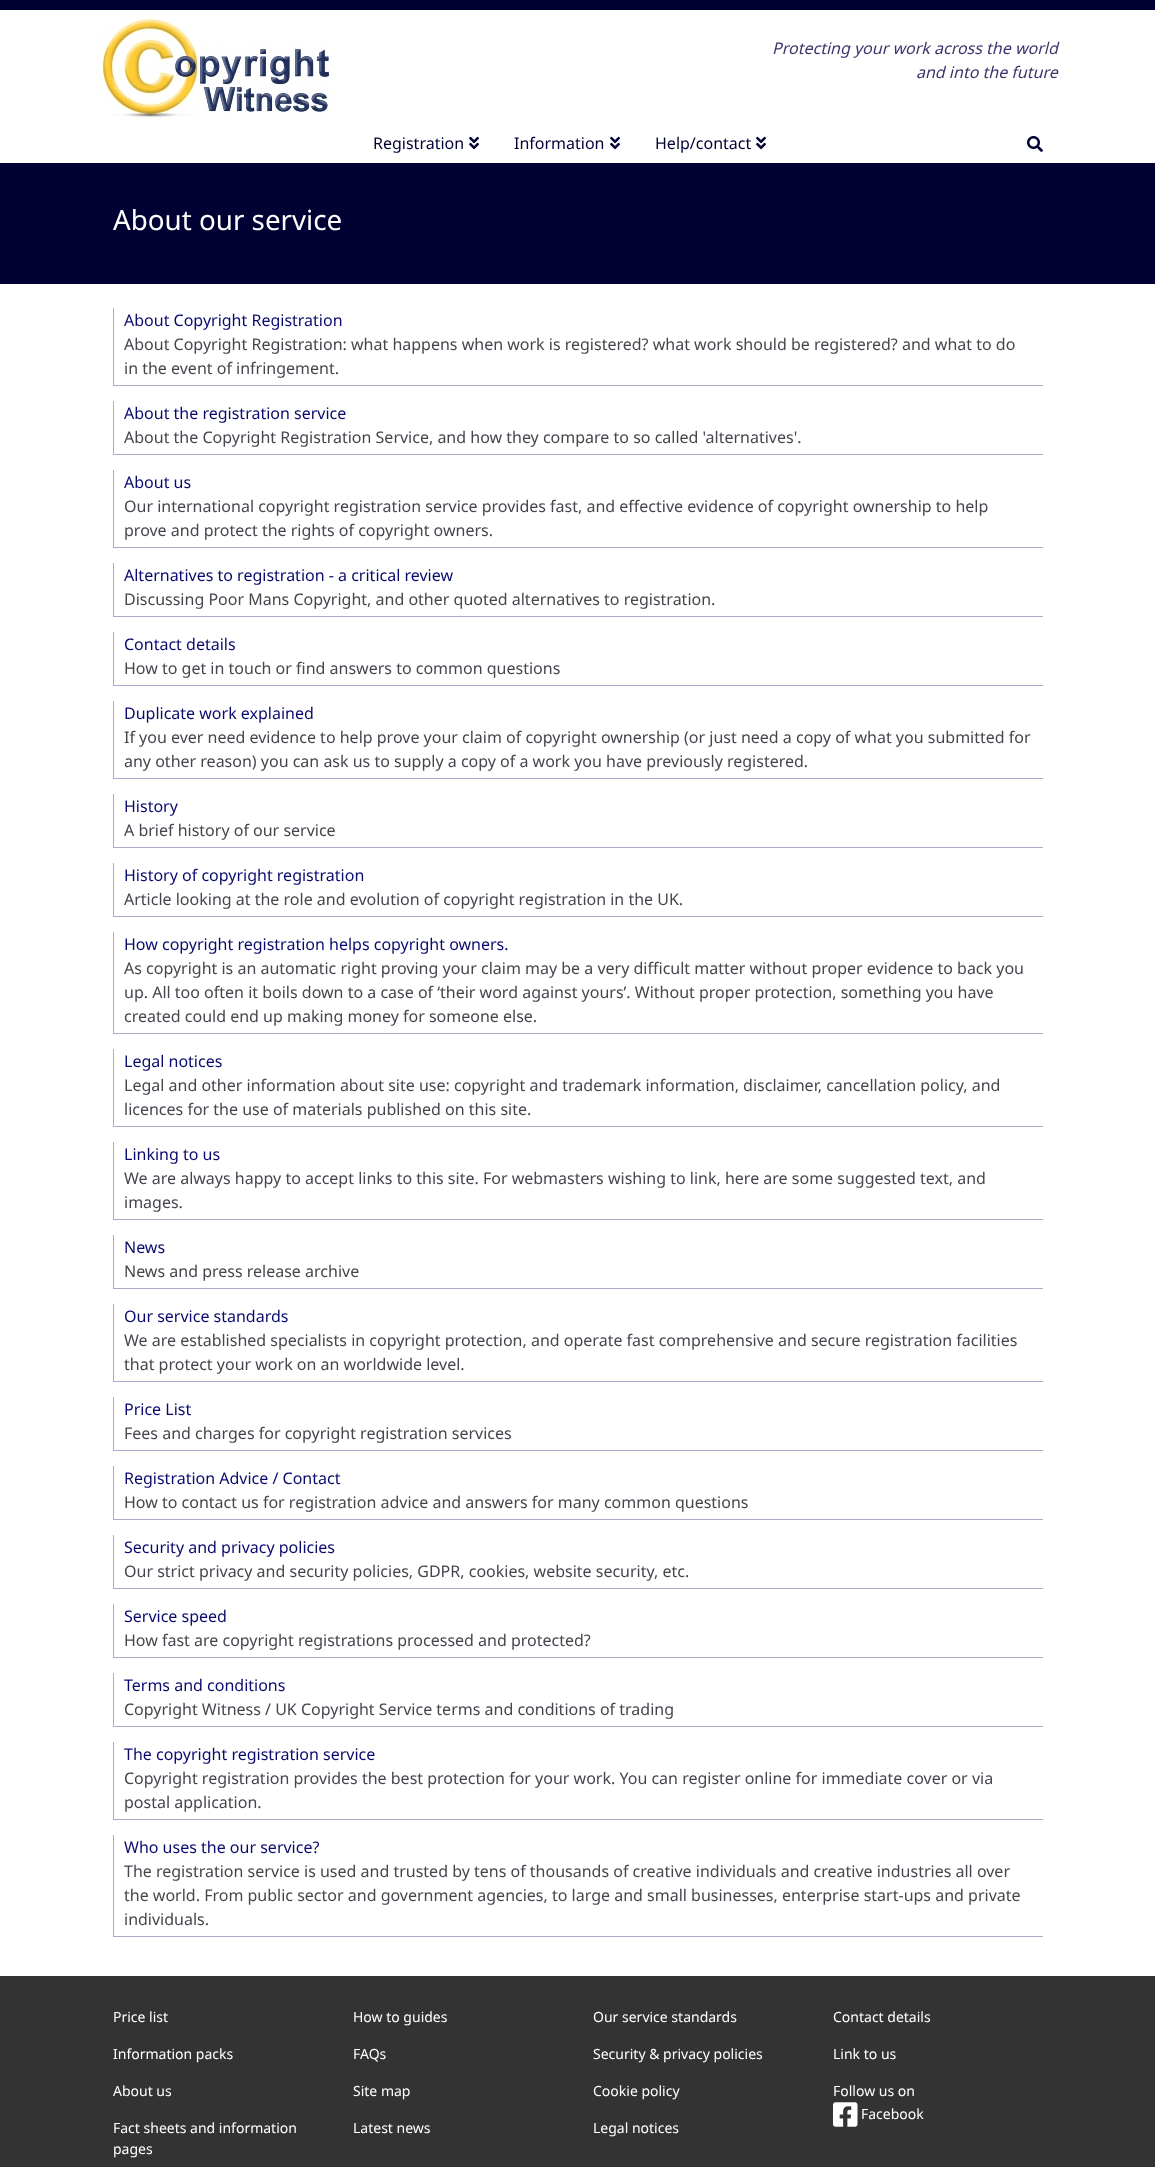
async function draw(canvas) {
  canvas.width = 1155
  canvas.height = 2167
  const ctx = canvas.getContext('2d')
  ctx.miterLimit = 4
  ctx.fontKerning = 'normal'
  async function loadImage(src) {
    const img = new Image()
    img.src = src
    await img.decode()
    return img
  }

  ctx.fillStyle = '#fff'
  ctx.fillRect(0, 0, 1155, 2167)
  ctx.fillStyle = '#003'
  ctx.fillRect(0, 0, 1155, 10)
  ctx.drawImage(await loadImage('image0.png'), 98, 17, 238, 105)
  ctx.font = 'italic 16px Noto Sans'
  ctx.fillStyle = '#39366a'
  ctx.fillText('Protecting your work across the world', 772, 54)
  ctx.fillText('and into the future', 916, 78)
  ctx.font = '16px Noto Sans'
  ctx.fillStyle = '#003'
  ctx.fillText('Registration', 373, 149)
  ctx.drawImage(await loadImage('image1.png'), 469, 136, 10, 14)
  ctx.fillText('Information', 514, 149)
  ctx.drawImage(await loadImage('image1.png'), 610, 136, 10, 14)
  ctx.fillText('Help/contact', 655, 149)
  ctx.drawImage(await loadImage('image1.png'), 756, 136, 10, 14)
  ctx.drawImage(await loadImage('image2.png'), 1027, 136, 16, 16)
  ctx.fillRect(0, 163, 1155, 121)
  ctx.font = '27.75px Noto Sans'
  ctx.fillStyle = '#fff'
  ctx.fillText('About our service', 113, 230)
  ctx.fillStyle = '#aac'
  ctx.fillRect(113, 385, 930, 1)
  ctx.fillRect(113, 308, 1, 78)
  ctx.font = '16px Noto Sans'
  ctx.fillStyle = '#0a0a6e'
  ctx.fillText('About Copyright Registration', 124, 326)
  ctx.fillStyle = '#45464d'
  ctx.fillText('About Copyright Registration: what happens when work is registered? what work should be registered? and what to do', 124, 350)
  ctx.fillText('in the event of infringement.', 124, 374)
  ctx.fillStyle = '#aac'
  ctx.fillRect(113, 454, 930, 1)
  ctx.fillRect(113, 401, 1, 54)
  ctx.fillStyle = '#0a0a6e'
  ctx.fillText('About the registration service', 124, 419)
  ctx.fillStyle = '#45464d'
  ctx.fillText('About the Copyright Registration Service, and how they compare to so called \'alternatives\'.', 124, 443)
  ctx.fillStyle = '#aac'
  ctx.fillRect(113, 547, 930, 1)
  ctx.fillRect(113, 470, 1, 78)
  ctx.fillStyle = '#0a0a6e'
  ctx.fillText('About us', 124, 488)
  ctx.fillStyle = '#45464d'
  ctx.fillText('Our international copyright registration service provides fast, and effective evidence of copyright ownership to help', 124, 512)
  ctx.fillText('prove and protect the rights of copyright owners.', 124, 536)
  ctx.fillStyle = '#aac'
  ctx.fillRect(113, 616, 930, 1)
  ctx.fillRect(113, 563, 1, 54)
  ctx.fillStyle = '#0a0a6e'
  ctx.fillText('Alternatives to registration - a critical review', 124, 581)
  ctx.fillStyle = '#45464d'
  ctx.fillText('Discussing Poor Mans Copyright, and other quoted alternatives to registration.', 124, 605)
  ctx.fillStyle = '#aac'
  ctx.fillRect(113, 685, 930, 1)
  ctx.fillRect(113, 632, 1, 54)
  ctx.fillStyle = '#0a0a6e'
  ctx.fillText('Contact details', 124, 650)
  ctx.fillStyle = '#45464d'
  ctx.fillText('How to get in touch or find answers to common questions', 124, 674)
  ctx.fillStyle = '#aac'
  ctx.fillRect(113, 778, 930, 1)
  ctx.fillRect(113, 701, 1, 78)
  ctx.fillStyle = '#0a0a6e'
  ctx.fillText('Duplicate work explained', 124, 719)
  ctx.fillStyle = '#45464d'
  ctx.fillText('If you ever need evidence to help prove your claim of copyright ownership (or just need a copy of what you submitted for', 124, 743)
  ctx.fillText('any other reason) you can ask us to supply a copy of a work you have previously registered.', 124, 767)
  ctx.fillStyle = '#aac'
  ctx.fillRect(113, 847, 930, 1)
  ctx.fillRect(113, 794, 1, 54)
  ctx.fillStyle = '#0a0a6e'
  ctx.fillText('History', 124, 812)
  ctx.fillStyle = '#45464d'
  ctx.fillText('A brief history of our service', 124, 836)
  ctx.fillStyle = '#aac'
  ctx.fillRect(113, 916, 930, 1)
  ctx.fillRect(113, 863, 1, 54)
  ctx.fillStyle = '#0a0a6e'
  ctx.fillText('History of copyright registration', 124, 881)
  ctx.fillStyle = '#45464d'
  ctx.fillText('Article looking at the role and evolution of copyright registration in the UK.', 124, 905)
  ctx.fillStyle = '#aac'
  ctx.fillRect(113, 1033, 930, 1)
  ctx.fillRect(113, 932, 1, 102)
  ctx.fillStyle = '#0a0a6e'
  ctx.fillText('How copyright registration helps copyright owners.', 124, 950)
  ctx.fillStyle = '#45464d'
  ctx.fillText('As copyright is an automatic right proving your claim may be a very difficult matter without proper evidence to back you', 124, 974)
  ctx.fillText('up. All too often it boils down to a case of ‘their word against yours’. Without proper protection, something you have', 124, 998)
  ctx.fillText('created could end up making money for someone else.', 124, 1022)
  ctx.fillStyle = '#aac'
  ctx.fillRect(113, 1126, 930, 1)
  ctx.fillRect(113, 1049, 1, 78)
  ctx.fillStyle = '#0a0a6e'
  ctx.fillText('Legal notices', 124, 1067)
  ctx.fillStyle = '#45464d'
  ctx.fillText('Legal and other information about site use: copyright and trademark information, disclaimer, cancellation policy, and', 124, 1091)
  ctx.fillText('licences for the use of materials published on this site.', 124, 1115)
  ctx.fillStyle = '#aac'
  ctx.fillRect(113, 1219, 930, 1)
  ctx.fillRect(113, 1142, 1, 78)
  ctx.fillStyle = '#0a0a6e'
  ctx.fillText('Linking to us', 124, 1160)
  ctx.fillStyle = '#45464d'
  ctx.fillText('We are always happy to accept links to this site. For webmasters wishing to link, here are some suggested text, and', 124, 1184)
  ctx.fillText('images.', 124, 1208)
  ctx.fillStyle = '#aac'
  ctx.fillRect(113, 1288, 930, 1)
  ctx.fillRect(113, 1235, 1, 54)
  ctx.fillStyle = '#0a0a6e'
  ctx.fillText('News', 124, 1253)
  ctx.fillStyle = '#45464d'
  ctx.fillText('News and press release archive', 124, 1277)
  ctx.fillStyle = '#aac'
  ctx.fillRect(113, 1381, 930, 1)
  ctx.fillRect(113, 1304, 1, 78)
  ctx.fillStyle = '#0a0a6e'
  ctx.fillText('Our service standards', 124, 1322)
  ctx.fillStyle = '#45464d'
  ctx.fillText('We are established specialists in copyright protection, and operate fast comprehensive and secure registration facilities', 124, 1346)
  ctx.fillText('that protect your work on an worldwide level.', 124, 1370)
  ctx.fillStyle = '#aac'
  ctx.fillRect(113, 1450, 930, 1)
  ctx.fillRect(113, 1397, 1, 54)
  ctx.fillStyle = '#0a0a6e'
  ctx.fillText('Price List', 124, 1415)
  ctx.fillStyle = '#45464d'
  ctx.fillText('Fees and charges for copyright registration services', 124, 1439)
  ctx.fillStyle = '#aac'
  ctx.fillRect(113, 1519, 930, 1)
  ctx.fillRect(113, 1466, 1, 54)
  ctx.fillStyle = '#0a0a6e'
  ctx.fillText('Registration Advice / Contact', 124, 1484)
  ctx.fillStyle = '#45464d'
  ctx.fillText('How to contact us for registration advice and answers for many common questions', 124, 1508)
  ctx.fillStyle = '#aac'
  ctx.fillRect(113, 1588, 930, 1)
  ctx.fillRect(113, 1535, 1, 54)
  ctx.fillStyle = '#0a0a6e'
  ctx.fillText('Security and privacy policies', 124, 1553)
  ctx.fillStyle = '#45464d'
  ctx.fillText('Our strict privacy and security policies, GDPR, cookies, website security, etc.', 124, 1577)
  ctx.fillStyle = '#aac'
  ctx.fillRect(113, 1657, 930, 1)
  ctx.fillRect(113, 1604, 1, 54)
  ctx.fillStyle = '#0a0a6e'
  ctx.fillText('Service speed', 124, 1622)
  ctx.fillStyle = '#45464d'
  ctx.fillText('How fast are copyright registrations processed and protected?', 124, 1646)
  ctx.fillStyle = '#aac'
  ctx.fillRect(113, 1726, 930, 1)
  ctx.fillRect(113, 1673, 1, 54)
  ctx.fillStyle = '#0a0a6e'
  ctx.fillText('Terms and conditions', 124, 1691)
  ctx.fillStyle = '#45464d'
  ctx.fillText('Copyright Witness / UK Copyright Service terms and conditions of trading', 124, 1715)
  ctx.fillStyle = '#aac'
  ctx.fillRect(113, 1819, 930, 1)
  ctx.fillRect(113, 1742, 1, 78)
  ctx.fillStyle = '#0a0a6e'
  ctx.fillText('The copyright registration service', 124, 1760)
  ctx.fillStyle = '#45464d'
  ctx.fillText('Copyright registration provides the best protection for your work. You can register online for immediate cover or via', 124, 1784)
  ctx.fillText('postal application.', 124, 1808)
  ctx.fillStyle = '#aac'
  ctx.fillRect(113, 1936, 930, 1)
  ctx.fillRect(113, 1835, 1, 102)
  ctx.fillStyle = '#0a0a6e'
  ctx.fillText('Who uses the our service?', 124, 1853)
  ctx.fillStyle = '#45464d'
  ctx.fillText('The registration service is used and trusted by tens of thousands of creative individuals and creative industries all over', 124, 1877)
  ctx.fillText('the world. From public sector and government agencies, to large and small businesses, enterprise start-ups and private', 124, 1901)
  ctx.fillText('individuals.', 124, 1925)
  ctx.fillStyle = '#333'
  ctx.fillRect(0, 1976, 1155, 191)
  ctx.font = '14px Noto Sans'
  ctx.fillStyle = '#fff'
  ctx.fillText('Price list', 113, 2022)
  ctx.fillText('Information packs', 113, 2059)
  ctx.fillText('About us', 113, 2096)
  ctx.fillText('Fact sheets and information', 113, 2133)
  ctx.fillText('pages', 113, 2154)
  ctx.fillText('How to guides', 353, 2022)
  ctx.fillText('FAQs', 353, 2059)
  ctx.fillText('Site map', 353, 2096)
  ctx.fillText('Latest news', 353, 2133)
  ctx.fillText('Our service standards', 593, 2022)
  ctx.fillText('Security & privacy policies', 593, 2059)
  ctx.fillText('Cookie policy', 593, 2096)
  ctx.fillText('Legal notices', 593, 2133)
  ctx.fillText('Contact details', 833, 2022)
  ctx.fillText('Link to us', 833, 2059)
  ctx.fillText('Follow us on', 833, 2096)
  ctx.drawImage(await loadImage('image3.png'), 833, 2102, 25, 25)
  ctx.fillText('Facebook', 861, 2119)
}

draw(document.querySelector('canvas'))
